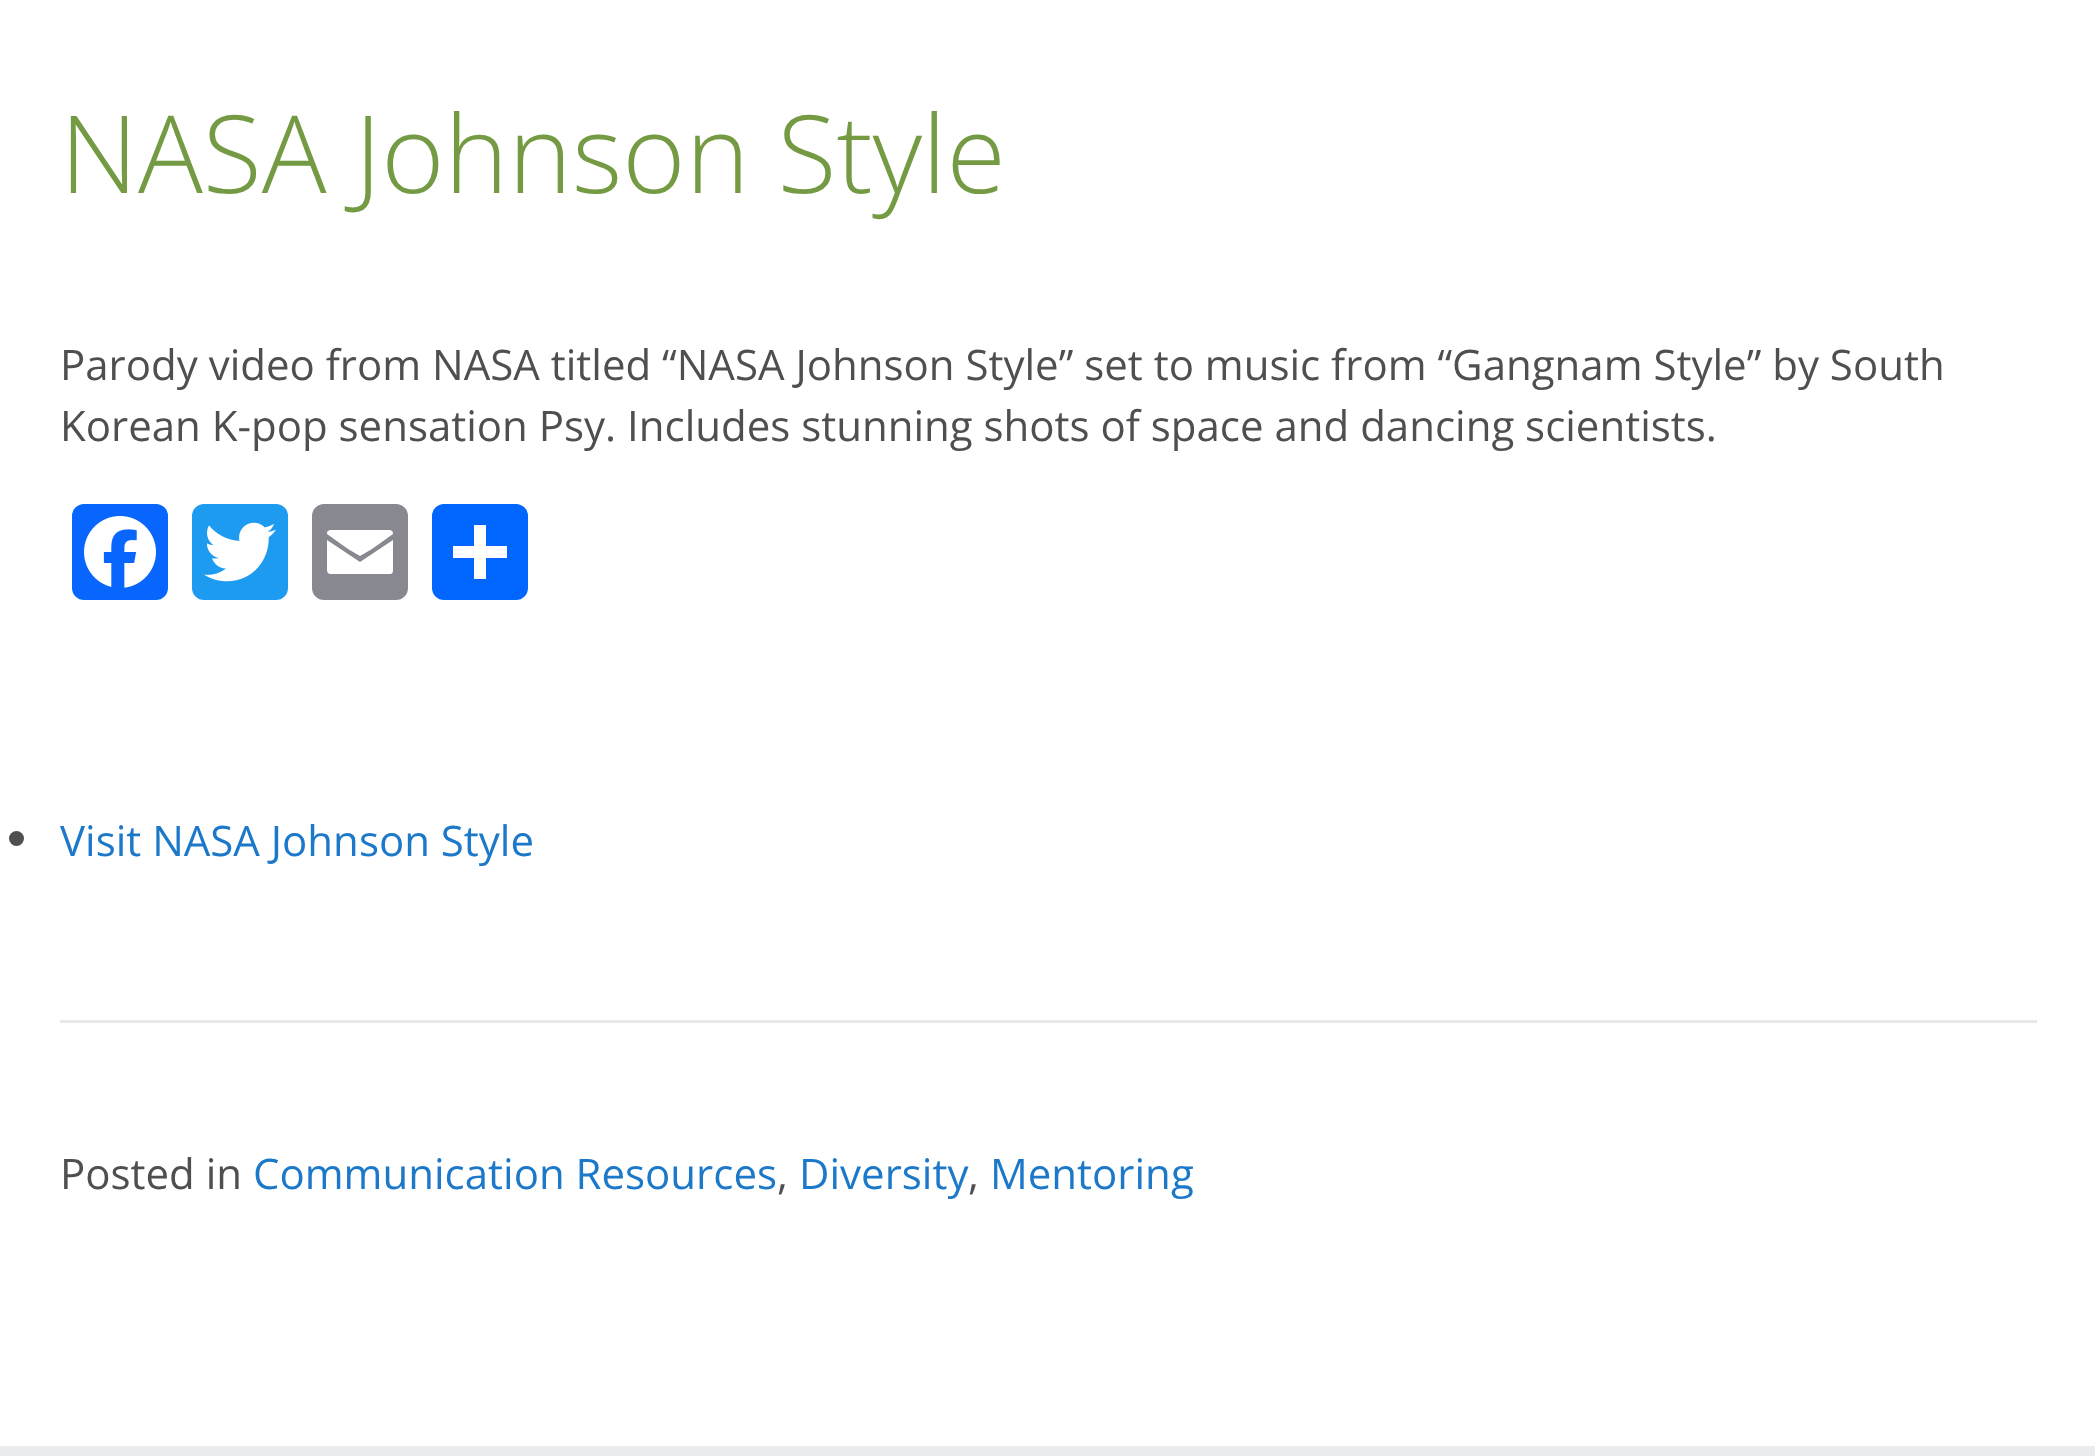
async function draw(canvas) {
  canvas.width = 2095
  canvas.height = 1456
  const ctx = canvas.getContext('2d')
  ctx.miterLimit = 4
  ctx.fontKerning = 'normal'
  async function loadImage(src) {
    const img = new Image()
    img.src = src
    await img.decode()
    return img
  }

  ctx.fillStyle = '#fff'
  ctx.fillRect(0, 0, 2095, 1456)
  ctx.font = '300 108px Open Sans'
  ctx.fillStyle = '#749b44'
  ctx.fillText('NASA Johnson Style', 60, 193)
  ctx.font = '42px Open Sans'
  ctx.fillStyle = '#4f4f4f'
  ctx.fillText('Parody video from NASA titled “NASA Johnson Style” set to music from “Gangnam Style” by South', 60, 380)
  ctx.fillText('Korean K-pop sensation Psy. Includes stunning shots of space and dancing scientists.', 60, 441)
  ctx.fillStyle = '#0866ff'
  ctx.beginPath()
  ctx.roundRect(72, 504, 96, 96, 12)
  ctx.fill()
  ctx.drawImage(await loadImage('image0.png'), 84, 516, 72, 72)
  ctx.fillStyle = '#1d9bf0'
  ctx.beginPath()
  ctx.roundRect(192, 504, 96, 96, 12)
  ctx.fill()
  ctx.drawImage(await loadImage('image1.png'), 204, 522, 72, 60)
  ctx.fillStyle = '#888990'
  ctx.beginPath()
  ctx.roundRect(312, 504, 96, 96, 12)
  ctx.fill()
  ctx.fillStyle = '#fff'
  ctx.beginPath()
  ctx.moveTo(393, 569)
  ctx.lineTo(393, 540)
  ctx.lineTo(360, 562)
  ctx.lineTo(327, 540)
  ctx.lineTo(327, 569)
  ctx.bezierCurveTo(327, 573, 328, 574, 332, 574)
  ctx.lineTo(388, 574)
  ctx.bezierCurveTo(392, 574, 393, 574, 393, 569)
  ctx.moveTo(393, 534)
  ctx.bezierCurveTo(393, 531, 392, 530, 388, 530)
  ctx.lineTo(332, 530)
  ctx.bezierCurveTo(328, 530, 327, 531, 327, 534)
  ctx.lineTo(348, 549)
  ctx.lineTo(360, 556)
  ctx.lineTo(372, 549)
  ctx.closePath()
  ctx.fill()
  ctx.fillStyle = '#0166ff'
  ctx.beginPath()
  ctx.roundRect(432, 504, 96, 96, 12)
  ctx.fill()
  ctx.fillStyle = '#fff'
  ctx.fillRect(474, 525, 12, 54)
  ctx.fillRect(453, 546, 54, 12)
  ctx.fillStyle = '#4f4f4f'
  ctx.beginPath()
  ctx.arc(16.5, 838.5, 7.5, 0, 2 * Math.PI)
  ctx.fill()
  ctx.fillStyle = '#1c78c9'
  ctx.fillText('Visit NASA Johnson Style', 60, 856)
  ctx.fillStyle = '#e8e8e8'
  ctx.fillRect(60, 1020, 1977, 3)
  ctx.fillStyle = '#4f4f4f'
  ctx.fillText('Posted in', 60, 1189)
  ctx.fillStyle = '#1c78c9'
  ctx.fillText('Communication Resources', 253, 1189)
  ctx.fillStyle = '#4f4f4f'
  ctx.fillText(',', 777, 1189)
  ctx.fillStyle = '#1c78c9'
  ctx.fillText('Diversity', 799, 1189)
  ctx.fillStyle = '#4f4f4f'
  ctx.fillText(',', 968, 1189)
  ctx.fillStyle = '#1c78c9'
  ctx.fillText('Mentoring', 990, 1189)
  ctx.fillStyle = '#eaecee'
  ctx.fillRect(0, 1446, 2095, 10)
}

draw(document.querySelector('canvas'))
